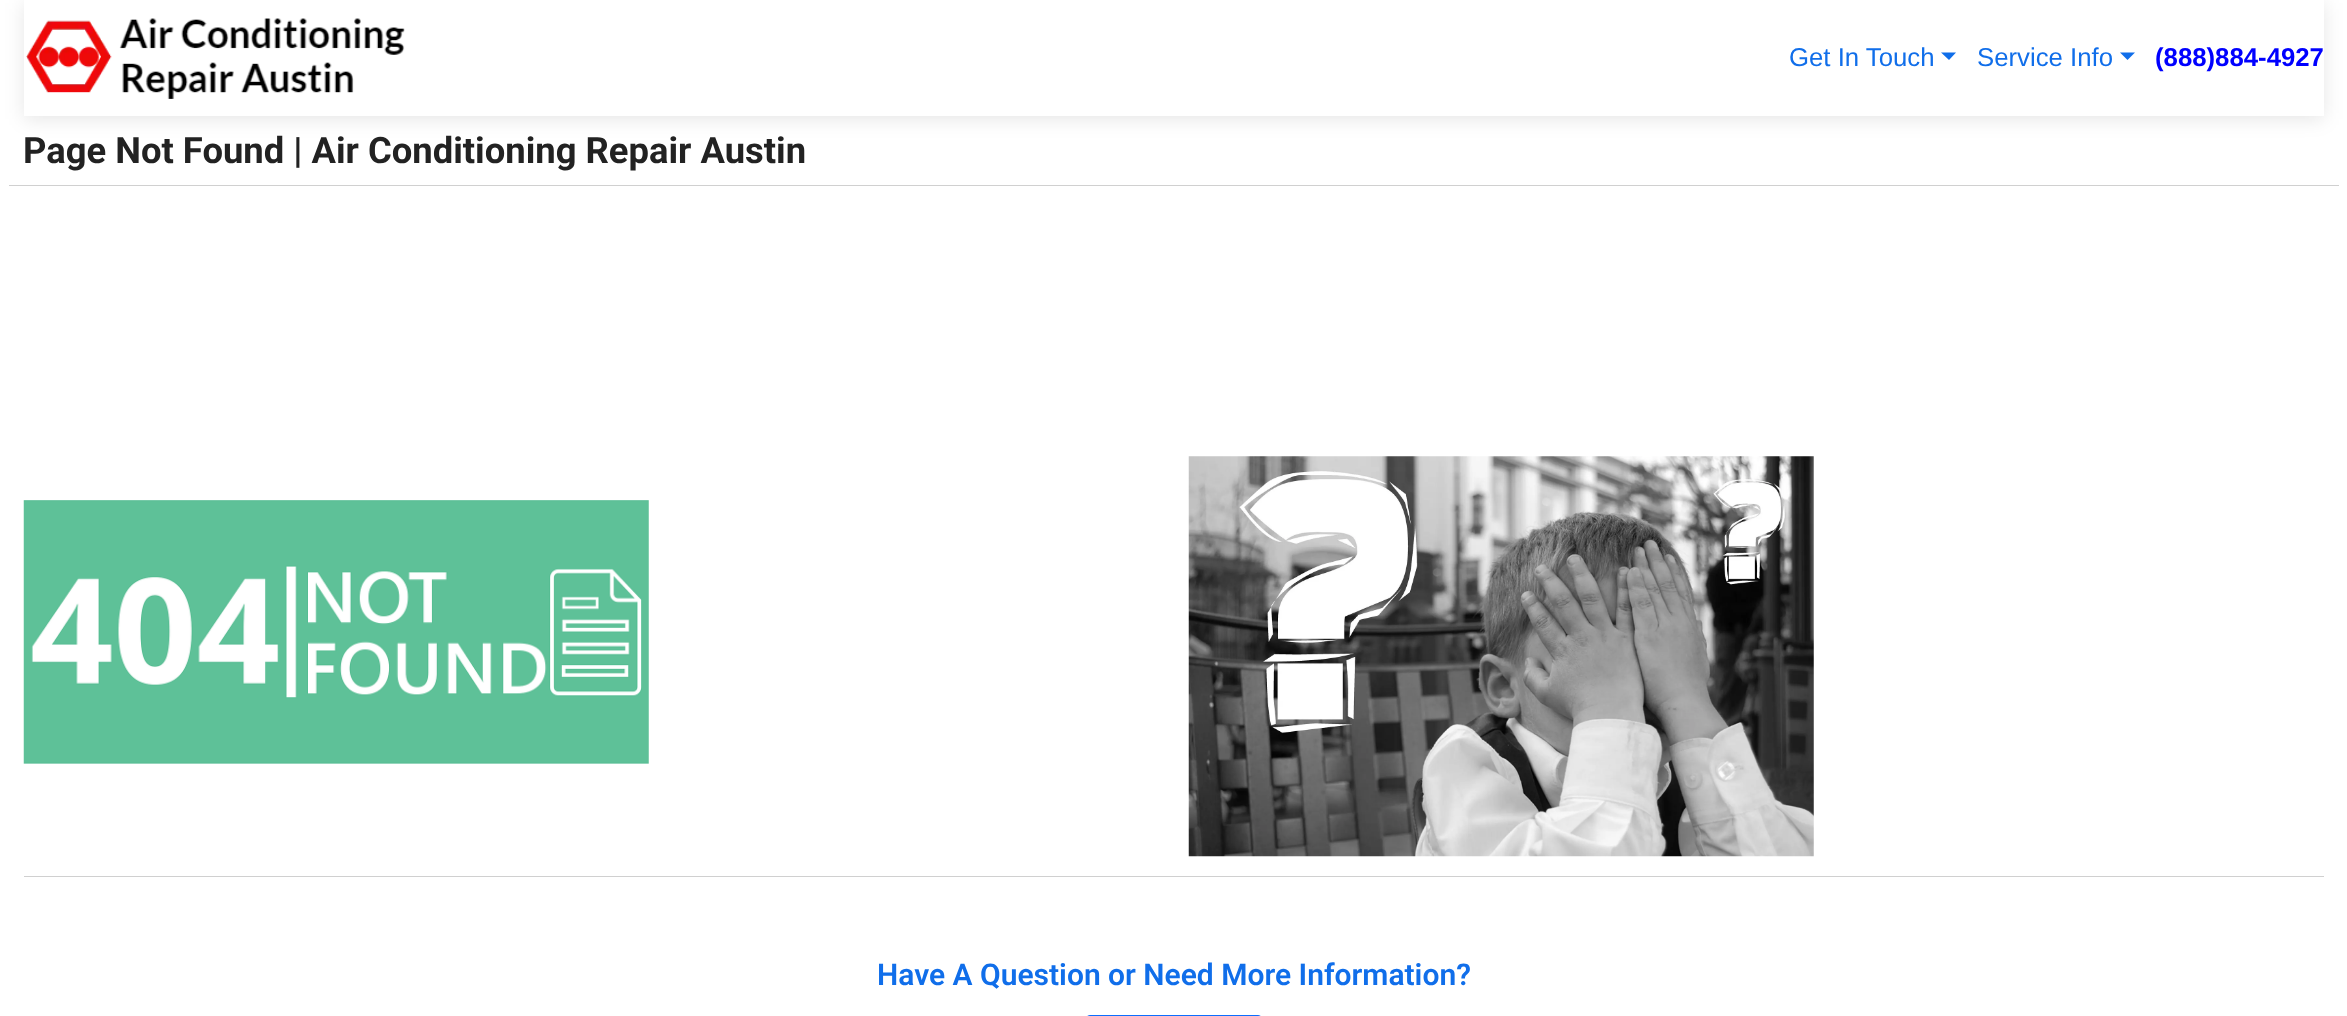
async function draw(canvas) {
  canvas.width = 2347
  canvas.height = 1016
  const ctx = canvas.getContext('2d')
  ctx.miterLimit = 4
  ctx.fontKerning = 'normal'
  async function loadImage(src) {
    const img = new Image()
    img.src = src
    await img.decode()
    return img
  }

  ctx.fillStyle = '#fff'
  ctx.fillRect(0, 0, 2347, 1016)
  ctx.fillStyle = '#0000001a'
  ctx.filter = 'blur(9.5px)'
  ctx.beginPath()
  ctx.rect(24, 3, 2300, 116)
  ctx.fill()
  ctx.filter = 'none'
  ctx.fillStyle = '#fff'
  ctx.fillRect(24, 0, 2300, 116)
  ctx.drawImage(await loadImage('image0.png'), 26, 18, 379, 81)
  ctx.font = '25.75px Liberation Sans'
  ctx.fillStyle = '#106eea'
  ctx.fillText('Get In Touch', 1789, 66)
  ctx.beginPath()
  ctx.moveTo(1941, 52.5)
  ctx.lineTo(1956, 52.5)
  ctx.lineTo(1949, 60)
  ctx.closePath()
  ctx.fill()
  ctx.fillText('Service Info', 1977, 66)
  ctx.beginPath()
  ctx.moveTo(2120, 52.5)
  ctx.lineTo(2135, 52.5)
  ctx.lineTo(2127.5, 60)
  ctx.closePath()
  ctx.fill()
  ctx.font = 'bold 25.75px Liberation Sans'
  ctx.fillStyle = '#00f'
  ctx.fillText('(888)884-4927', 2155, 66)
  ctx.font = 'bold 36.4px Roboto'
  ctx.fillStyle = '#222'
  ctx.fillText('Page Not Found | Air Conditioning Repair Austin', 23, 163)
  ctx.fillStyle = '#d0d0d0'
  ctx.fillRect(9, 185, 2330, 1)
  ctx.drawImage(await loadImage('image1.png'), 23, 500, 626, 264)
  ctx.drawImage(await loadImage('image2.png'), 1188, 456, 626, 401)
  ctx.fillRect(24, 876, 2300, 1)
  ctx.font = '600 30px Roboto'
  ctx.fillStyle = '#106eea'
  ctx.fillText('Have A Question or Need More Information?', 877, 985)
  ctx.beginPath()
  ctx.roundRect(1085.5, 1015.5, 177, 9, 7.5)
  ctx.strokeStyle = '#0d6efd'
  ctx.stroke()
}

draw(document.querySelector('canvas'))
